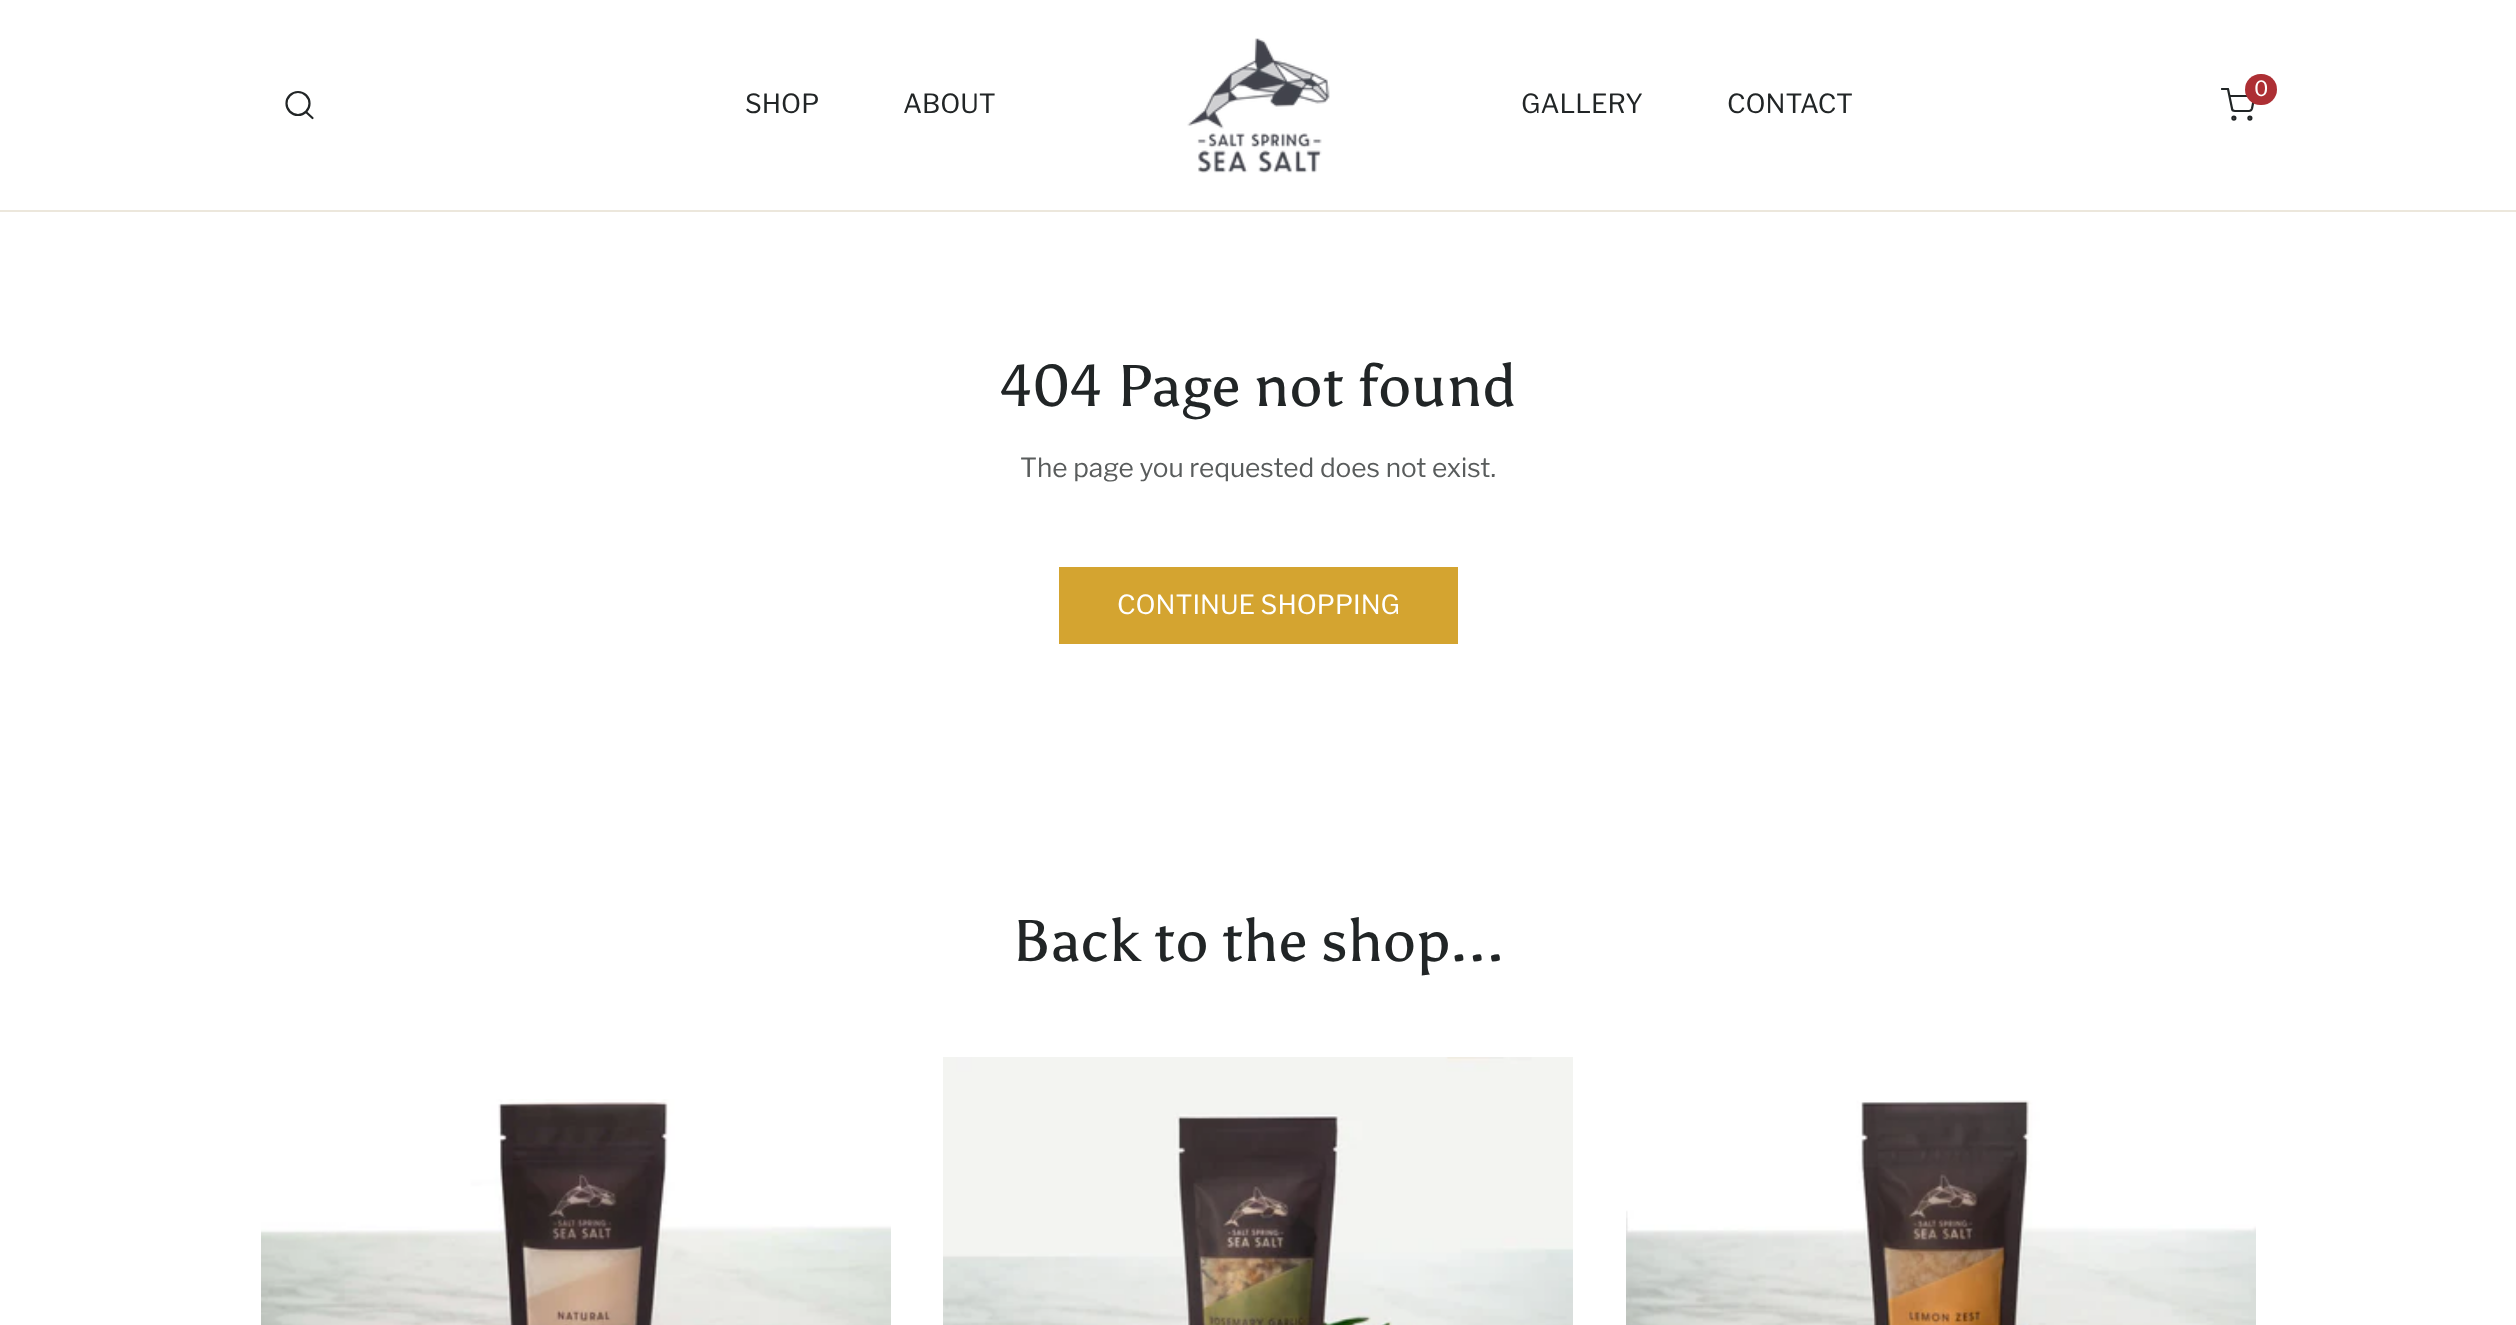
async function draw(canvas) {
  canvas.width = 2516
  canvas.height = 1325
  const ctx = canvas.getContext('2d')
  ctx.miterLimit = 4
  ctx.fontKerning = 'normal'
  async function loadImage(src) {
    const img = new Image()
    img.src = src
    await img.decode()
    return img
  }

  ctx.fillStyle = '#fff'
  ctx.fillRect(0, 0, 2516, 1325)
  ctx.fillStyle = '#ece7dc'
  ctx.fillRect(0, 210, 2516, 2)
  ctx.beginPath()
  ctx.arc(298, 103.5, 11.5, 0, 2 * Math.PI)
  ctx.strokeStyle = '#212526'
  ctx.lineWidth = 2.2
  ctx.stroke()
  ctx.beginPath()
  ctx.moveTo(312.5, 118)
  ctx.lineTo(306, 112)
  ctx.lineCap = 'round'
  ctx.lineJoin = 'round'
  ctx.stroke()
  ctx.font = '26.25px Libre Franklin'
  ctx.fillStyle = '#212526'
  ctx.fillText('SHOP', 745, 113)
  ctx.fillText('ABOUT', 903, 113)
  ctx.drawImage(await loadImage('image0.png'), 1187, 38, 143, 135)
  ctx.beginPath()
  ctx.arc(2233.9, 118.1, 1.5, 0, 2 * Math.PI)
  ctx.stroke()
  ctx.beginPath()
  ctx.arc(2249.9, 118.1, 1.5, 0, 2 * Math.PI)
  ctx.stroke()
  ctx.save()
  ctx.beginPath()
  ctx.rect(2221, 88, 35, 35)
  ctx.clip()
  ctx.beginPath()
  ctx.moveTo(2222, 89)
  ctx.lineTo(2228, 89)
  ctx.lineTo(2232, 108.5)
  ctx.bezierCurveTo(2232, 110, 2233.5, 111, 2235, 111)
  ctx.lineTo(2249, 111)
  ctx.bezierCurveTo(2250.5, 111, 2251.5, 110, 2252, 108.5)
  ctx.lineTo(2254.5, 96)
  ctx.lineTo(2229.5, 96)
  ctx.stroke()
  ctx.restore()
  ctx.fillStyle = '#ad2f34'
  ctx.beginPath()
  ctx.roundRect(2245, 74, 32, 31, 15.5)
  ctx.fill()
  ctx.font = '21px Libre Franklin'
  ctx.fillStyle = '#fff'
  ctx.fillText('0', 2254, 96)
  ctx.font = '26.25px Libre Franklin'
  ctx.fillStyle = '#212526'
  ctx.fillText('GALLERY', 1521, 113)
  ctx.fillText('CONTACT', 1727, 113)
  ctx.font = '58.75px Asul'
  ctx.fillText('404 Page not found', 1000, 406)
  ctx.font = '26.25px Libre Franklin'
  ctx.fillStyle = '#595c5c'
  ctx.fillText('The page you requested does not exist.', 1020, 477)
  ctx.fillStyle = '#d4a430'
  ctx.fillRect(1059, 567, 399, 77)
  ctx.fillStyle = '#fff'
  ctx.fillText('CONTINUE SHOPPING', 1117, 614)
  ctx.font = '58.75px Asul'
  ctx.fillStyle = '#212526'
  ctx.fillText('Back to the shop...', 1012, 961)
  ctx.drawImage(await loadImage('image1.png'), 261, 1099, 630, 226)
  ctx.drawImage(await loadImage('image2.png'), 943, 1057, 630, 268)
  ctx.drawImage(await loadImage('image3.png'), 1626, 1100, 630, 225)
}

draw(document.querySelector('canvas'))
